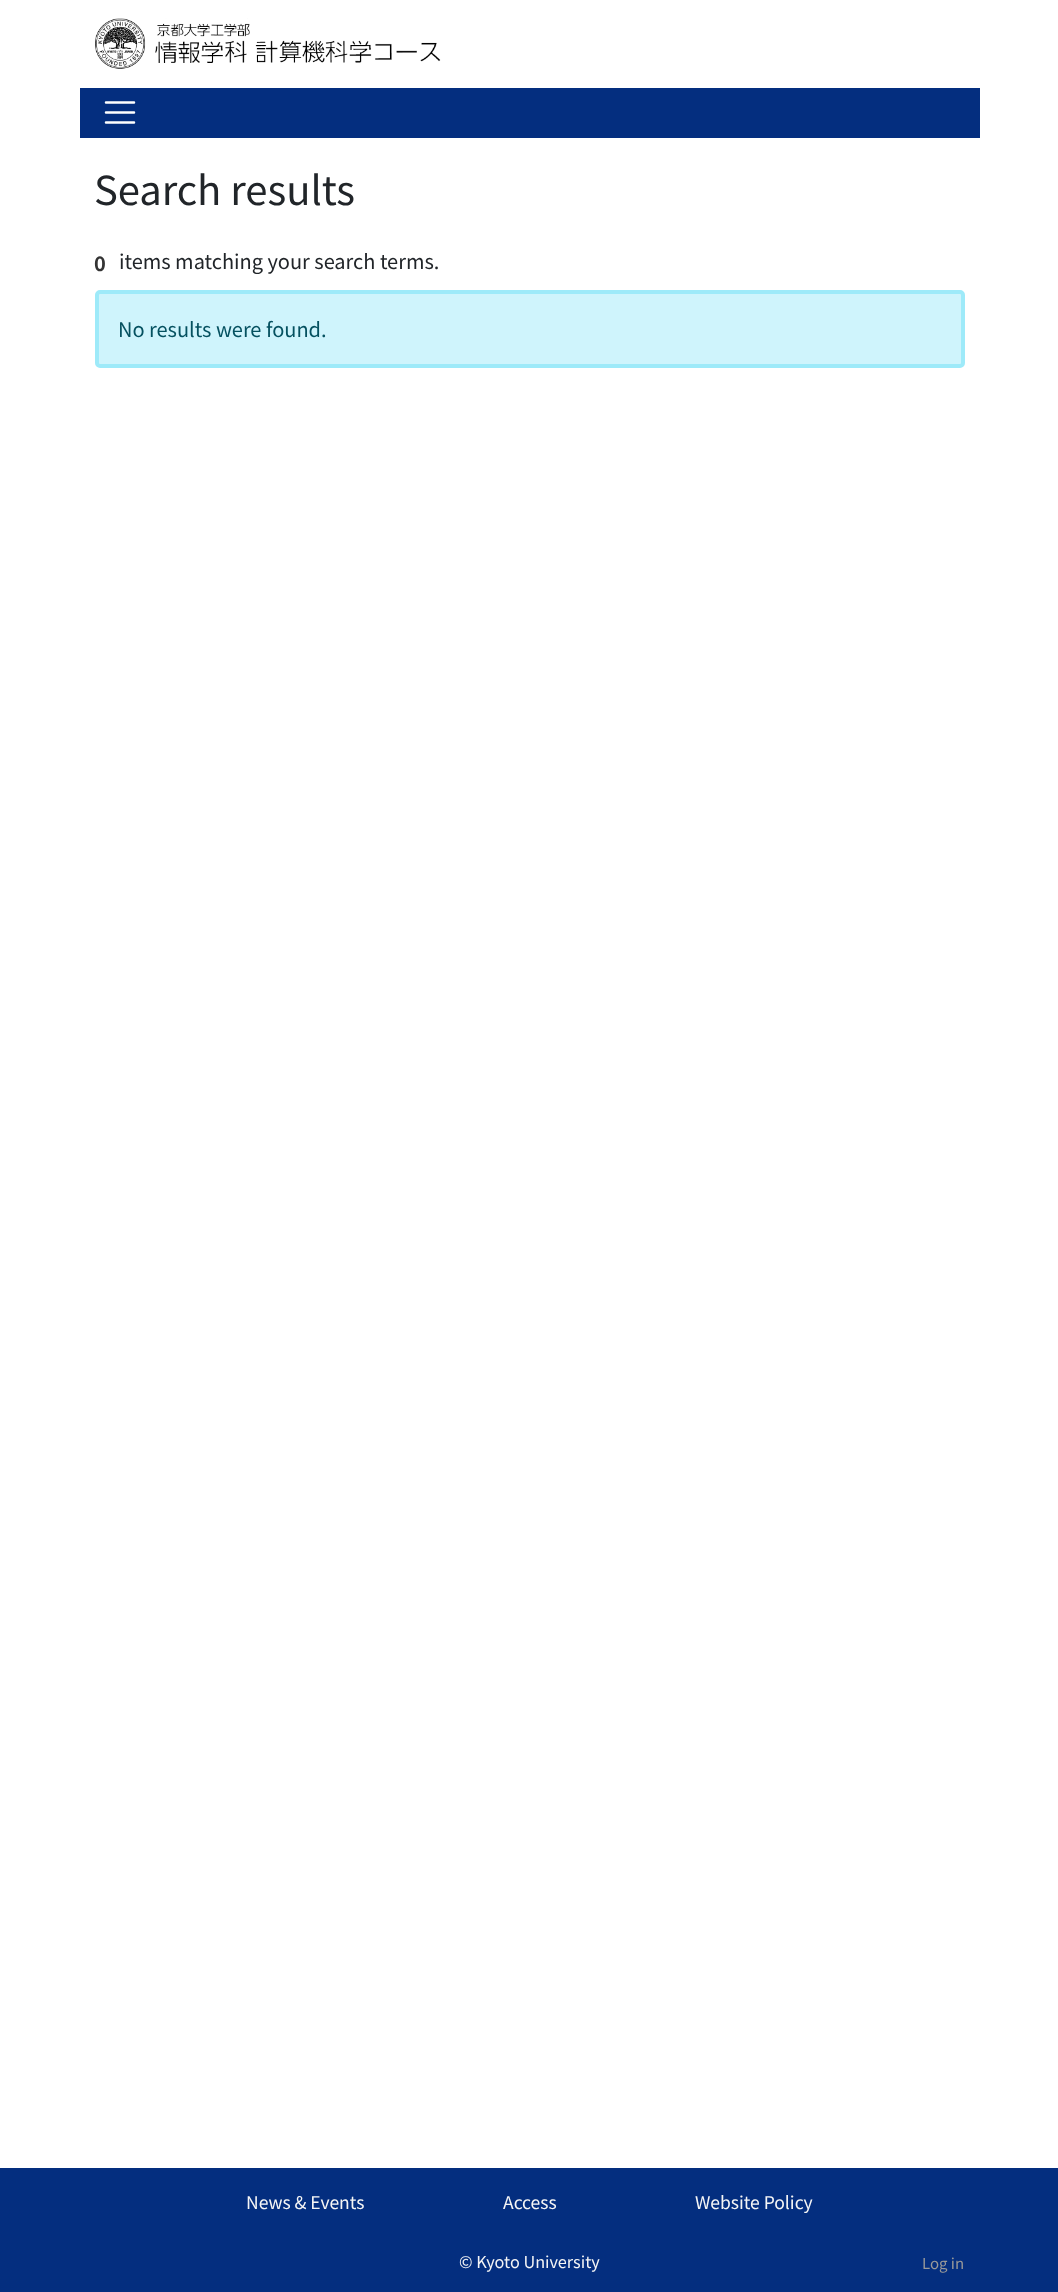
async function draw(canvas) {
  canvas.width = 1058
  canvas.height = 2292
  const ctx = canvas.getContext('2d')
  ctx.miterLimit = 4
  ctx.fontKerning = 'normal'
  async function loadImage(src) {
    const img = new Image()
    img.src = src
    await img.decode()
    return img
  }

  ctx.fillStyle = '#fff'
  ctx.fillRect(0, 0, 1058, 2292)
  ctx.drawImage(await loadImage('image0.png'), 95, 18, 346, 51)
  ctx.fillStyle = '#042e7f'
  ctx.fillRect(80, 88, 900, 50)
  ctx.beginPath()
  ctx.moveTo(106, 102.5)
  ctx.lineTo(134, 102.5)
  ctx.moveTo(106, 112.5)
  ctx.lineTo(134, 112.5)
  ctx.moveTo(106, 122.5)
  ctx.lineTo(134, 122.5)
  ctx.strokeStyle = '#fff'
  ctx.lineWidth = 2.5
  ctx.lineCap = 'round'
  ctx.stroke()
  ctx.font = '40px Noto Sans JP'
  ctx.fillStyle = '#212529'
  ctx.fillText('Search results', 94, 205)
  ctx.font = 'bold 20px Noto Sans JP'
  ctx.fillStyle = '#343434'
  ctx.fillText('0', 94, 271)
  ctx.font = '20px Noto Sans JP'
  ctx.fillStyle = '#212529'
  ctx.fillText('items matching your search terms.', 119, 269)
  ctx.fillStyle = '#cff4fc'
  ctx.beginPath()
  ctx.roundRect(97, 292, 866, 74, 3)
  ctx.fill()
  ctx.strokeStyle = '#9eeaf9'
  ctx.lineWidth = 4
  ctx.stroke()
  ctx.fillStyle = '#055160'
  ctx.fillText('No results were found.', 118, 337)
  ctx.fillStyle = '#042e7f'
  ctx.fillRect(0, 2168, 1058, 124)
  ctx.font = '17.5px Noto Sans JP'
  ctx.fillStyle = '#f6f6f6'
  ctx.fillText('News & Events', 246, 2209)
  ctx.fillText('Access', 503, 2209)
  ctx.fillText('Website Policy', 695, 2209)
  ctx.font = '16.25px Noto Sans JP'
  ctx.fillText('© Kyoto University', 459, 2268)
  ctx.font = '15px Noto Sans JP'
  ctx.fillStyle = '#999'
  ctx.fillText('Log in', 922, 2269)
}

draw(document.querySelector('canvas'))
